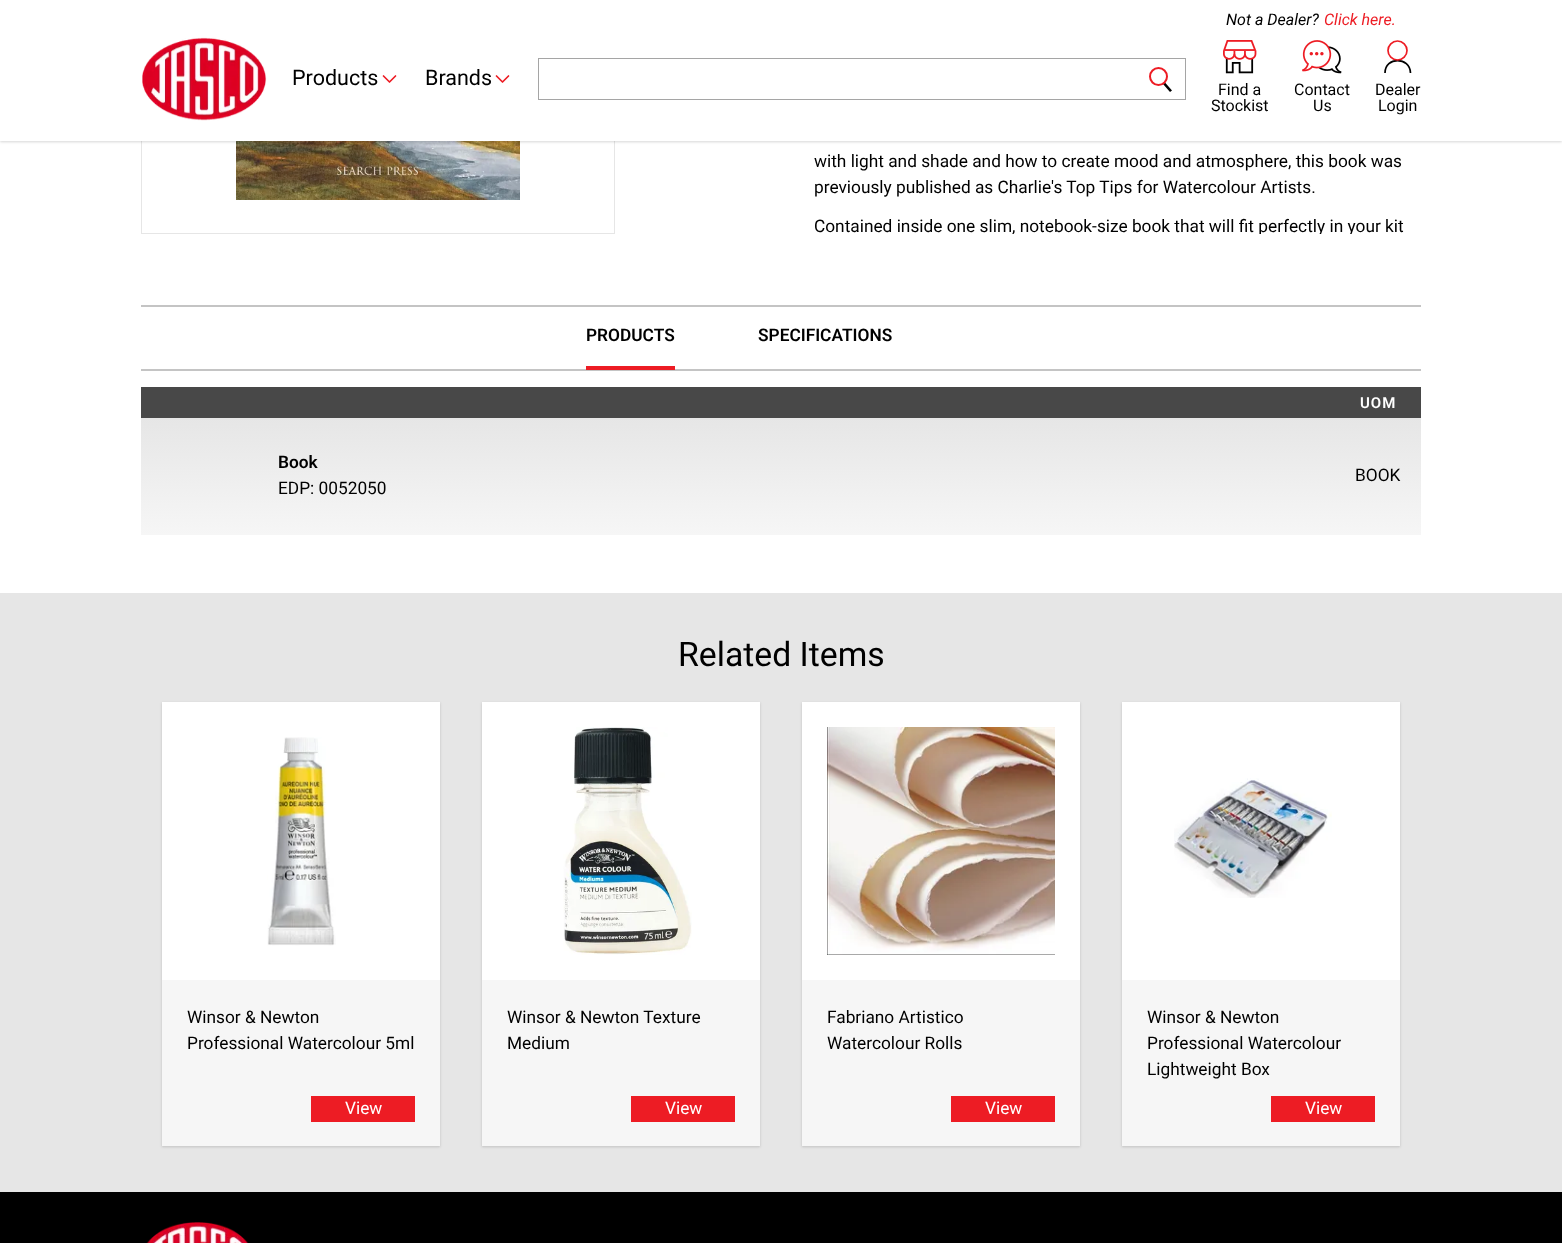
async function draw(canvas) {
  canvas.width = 1562
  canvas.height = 1243
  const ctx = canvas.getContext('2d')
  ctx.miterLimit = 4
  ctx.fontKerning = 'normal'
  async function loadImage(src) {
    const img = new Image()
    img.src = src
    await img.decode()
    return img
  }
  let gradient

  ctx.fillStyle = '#fff'
  ctx.fillRect(0, 0, 1562, 1243)
  ctx.strokeStyle = '#e6e6e6'
  ctx.strokeRect(141.5, -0.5, 473, 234)
  ctx.drawImage(await loadImage('image3.png'), 236, 141, 284, 59)
  ctx.fillStyle = '#0000000f'
  ctx.filter = 'blur(1px)'
  ctx.beginPath()
  ctx.rect(0, 1, 1562, 141)
  ctx.fill()
  ctx.filter = 'none'
  ctx.fillStyle = '#0000001a'
  ctx.filter = 'blur(1.5px)'
  ctx.beginPath()
  ctx.rect(0, 1, 1562, 141)
  ctx.fill()
  ctx.filter = 'none'
  ctx.fillStyle = '#fff'
  ctx.fillRect(0, 0, 1562, 141)
  ctx.font = 'italic 16px Roboto'
  ctx.fillStyle = '#000'
  ctx.fillText('Not a Dealer?', 1226, 25)
  ctx.fillStyle = '#ed1c24'
  ctx.fillText('Click here.', 1324, 25)
  ctx.drawImage(await loadImage('image0.png'), 142, 37, 125, 84)
  ctx.font = '21.5px Roboto'
  ctx.fillStyle = '#000'
  ctx.fillText('Products', 292, 85)
  ctx.beginPath()
  ctx.moveTo(395.5, 76)
  ctx.lineTo(389.5, 82)
  ctx.lineTo(383.5, 76)
  ctx.strokeStyle = '#ed1c24'
  ctx.lineWidth = 1.7
  ctx.lineCap = 'round'
  ctx.lineJoin = 'round'
  ctx.stroke()
  ctx.fillText('Brands', 425, 85)
  ctx.beginPath()
  ctx.moveTo(508.5, 76)
  ctx.lineTo(502.5, 82)
  ctx.lineTo(496.5, 76)
  ctx.stroke()
  ctx.strokeStyle = '#a5a5a5'
  ctx.lineWidth = 1
  ctx.lineJoin = 'miter'
  ctx.strokeRect(538.5, 58.5, 647, 41)
  ctx.beginPath()
  ctx.moveTo(1163, 84)
  ctx.lineTo(1165, 82.5)
  ctx.lineTo(1172, 90.5)
  ctx.lineTo(1170, 92)
  ctx.closePath()
  ctx.fill()
  ctx.beginPath()
  ctx.arc(1158.5, 76.5, 8.5, 0, 2 * Math.PI)
  ctx.strokeStyle = '#ed1c24'
  ctx.lineWidth = 2
  ctx.stroke()
  ctx.drawImage(await loadImage('image1.png'), 1223, 40, 34, 34)
  ctx.font = '16px Roboto'
  ctx.fillText('Find a', 1218, 95)
  ctx.fillText('Stockist', 1211, 111)
  ctx.drawImage(await loadImage('image2.png'), 1302, 40, 40, 34)
  ctx.fillText('Contact', 1294, 95)
  ctx.fillText('Us', 1313, 111)
  ctx.beginPath()
  ctx.moveTo(1410.5, 73)
  ctx.bezierCurveTo(1410, 56.5, 1385, 56.5, 1385, 73)
  ctx.strokeStyle = '#000'
  ctx.lineWidth = 1.7
  ctx.lineCap = 'butt'
  ctx.stroke()
  ctx.beginPath()
  ctx.arc(1397.5, 50.5, 9.5, 0, 2 * Math.PI)
  ctx.strokeStyle = '#ed1c24'
  ctx.stroke()
  ctx.fillText('Dealer', 1375, 95)
  ctx.fillText('Login', 1378, 111)
  ctx.font = '17.3px Roboto'
  ctx.fillText('with light and shade and how to create mood and atmosphere, this book was', 814, 167)
  ctx.fillText('previously published as Charlie\'s Top Tips for Watercolour Artists.', 814, 193)
  ctx.save()
  ctx.beginPath()
  ctx.rect(814, 0, 607, 234)
  ctx.clip()
  ctx.fillText('Contained inside one slim, notebook-size book that will fit perfectly in your kit', 814, 232)
  ctx.restore()
  ctx.fillStyle = '#c4c4c4'
  ctx.fillRect(141, 305, 1280, 2)
  ctx.fillRect(141, 369, 1280, 2)
  ctx.fillStyle = '#ed1c24'
  ctx.fillRect(586, 366, 89, 4)
  ctx.font = '600 17.3px Roboto'
  ctx.fillStyle = '#000'
  ctx.fillText('PRODUCTS', 586, 341)
  ctx.fillText('SPECIFICATIONS', 758, 341)
  ctx.fillStyle = '#484848'
  ctx.fillRect(141, 387, 1280, 31)
  ctx.letterSpacing = '1px'
  ctx.font = '600 15px Roboto'
  ctx.fillStyle = '#fff'
  ctx.fillText('UOM', 1360, 408)
  gradient = ctx.createLinearGradient(204, 535, 204, 418)
  gradient.addColorStop(0, '#f6f6f6')
  gradient.addColorStop(1, '#e6e6e6')
  ctx.fillStyle = gradient
  ctx.fillRect(141, 418, 125, 117)
  gradient = ctx.createLinearGradient(800, 535, 800, 418)
  gradient.addColorStop(0, '#f6f6f6')
  gradient.addColorStop(1, '#e6e6e6')
  ctx.fillStyle = gradient
  ctx.fillRect(266, 418, 1068, 117)
  ctx.letterSpacing = '0px'
  ctx.font = '600 17.3px Roboto'
  ctx.fillStyle = '#000'
  ctx.fillText('Book', 278, 468)
  ctx.font = '17.3px Roboto'
  ctx.fillText('EDP: 0052050', 278, 494)
  gradient = ctx.createLinearGradient(1378, 535, 1378, 418)
  gradient.addColorStop(0, '#f6f6f6')
  gradient.addColorStop(1, '#e6e6e6')
  ctx.fillStyle = gradient
  ctx.fillRect(1334, 418, 87, 117)
  ctx.fillStyle = '#000'
  ctx.fillText('BOOK', 1355, 481)
  ctx.fillStyle = '#e6e6e6'
  ctx.fillRect(0, 593, 1562, 599)
  ctx.font = '33.75px Roboto'
  ctx.fillStyle = '#000'
  ctx.fillText('Related Items', 678, 666)
  ctx.fillStyle = '#0000000f'
  ctx.filter = 'blur(1px)'
  ctx.beginPath()
  ctx.rect(162, 703, 278, 444)
  ctx.fill()
  ctx.filter = 'none'
  ctx.fillStyle = '#0000001a'
  ctx.filter = 'blur(1.5px)'
  ctx.beginPath()
  ctx.rect(162, 703, 278, 444)
  ctx.fill()
  ctx.filter = 'none'
  ctx.fillStyle = '#fff'
  ctx.fillRect(162, 702, 278, 278)
  ctx.drawImage(await loadImage('image4.png'), 267, 737, 69, 209)
  ctx.fillStyle = '#f6f6f6'
  ctx.fillRect(162, 980, 278, 166)
  ctx.font = '17.3px Roboto'
  ctx.fillStyle = '#000'
  ctx.fillText('Winsor & Newton', 187, 1023)
  ctx.fillText('Professional Watercolour 5ml', 187, 1049)
  ctx.fillStyle = '#ed1c24'
  ctx.fillRect(311, 1096, 104, 26)
  ctx.fillStyle = '#fff'
  ctx.fillText('View', 345, 1114)
  ctx.fillStyle = '#0000000f'
  ctx.filter = 'blur(1px)'
  ctx.beginPath()
  ctx.rect(482, 703, 278, 444)
  ctx.fill()
  ctx.filter = 'none'
  ctx.fillStyle = '#0000001a'
  ctx.filter = 'blur(1.5px)'
  ctx.beginPath()
  ctx.rect(482, 703, 278, 444)
  ctx.fill()
  ctx.filter = 'none'
  ctx.fillStyle = '#fff'
  ctx.fillRect(482, 702, 278, 278)
  ctx.drawImage(await loadImage('image5.png'), 563, 727, 129, 228)
  ctx.fillStyle = '#f6f6f6'
  ctx.fillRect(482, 980, 278, 166)
  ctx.fillStyle = '#000'
  ctx.fillText('Winsor & Newton Texture', 507, 1023)
  ctx.fillText('Medium', 507, 1049)
  ctx.fillStyle = '#ed1c24'
  ctx.fillRect(631, 1096, 104, 26)
  ctx.fillStyle = '#fff'
  ctx.fillText('View', 665, 1114)
  ctx.fillStyle = '#0000000f'
  ctx.filter = 'blur(1px)'
  ctx.beginPath()
  ctx.rect(802, 703, 278, 444)
  ctx.fill()
  ctx.filter = 'none'
  ctx.fillStyle = '#0000001a'
  ctx.filter = 'blur(1.5px)'
  ctx.beginPath()
  ctx.rect(802, 703, 278, 444)
  ctx.fill()
  ctx.filter = 'none'
  ctx.fillStyle = '#fff'
  ctx.fillRect(802, 702, 278, 278)
  ctx.drawImage(await loadImage('image6.png'), 827, 727, 228, 228)
  ctx.fillStyle = '#f6f6f6'
  ctx.fillRect(802, 980, 278, 166)
  ctx.fillStyle = '#000'
  ctx.fillText('Fabriano Artistico', 827, 1023)
  ctx.fillText('Watercolour Rolls', 827, 1049)
  ctx.fillStyle = '#ed1c24'
  ctx.fillRect(951, 1096, 104, 26)
  ctx.fillStyle = '#fff'
  ctx.fillText('View', 985, 1114)
  ctx.fillStyle = '#0000000f'
  ctx.filter = 'blur(1px)'
  ctx.beginPath()
  ctx.rect(1122, 703, 278, 444)
  ctx.fill()
  ctx.filter = 'none'
  ctx.fillStyle = '#0000001a'
  ctx.filter = 'blur(1.5px)'
  ctx.beginPath()
  ctx.rect(1122, 703, 278, 444)
  ctx.fill()
  ctx.filter = 'none'
  ctx.fillStyle = '#fff'
  ctx.fillRect(1122, 702, 278, 278)
  ctx.drawImage(await loadImage('image7.png'), 1174, 778, 158, 120)
  ctx.fillStyle = '#f6f6f6'
  ctx.fillRect(1122, 980, 278, 166)
  ctx.fillStyle = '#000'
  ctx.fillText('Winsor & Newton', 1147, 1023)
  ctx.fillText('Professional Watercolour', 1147, 1049)
  ctx.fillText('Lightweight Box', 1147, 1075)
  ctx.fillStyle = '#ed1c24'
  ctx.fillRect(1271, 1096, 104, 26)
  ctx.fillStyle = '#fff'
  ctx.fillText('View', 1305, 1114)
  ctx.fillStyle = '#000'
  ctx.fillRect(0, 1192, 1562, 51)
  ctx.drawImage(await loadImage('image8.png'), 146, 1222, 103, 21)
}

draw(document.querySelector('canvas'))
